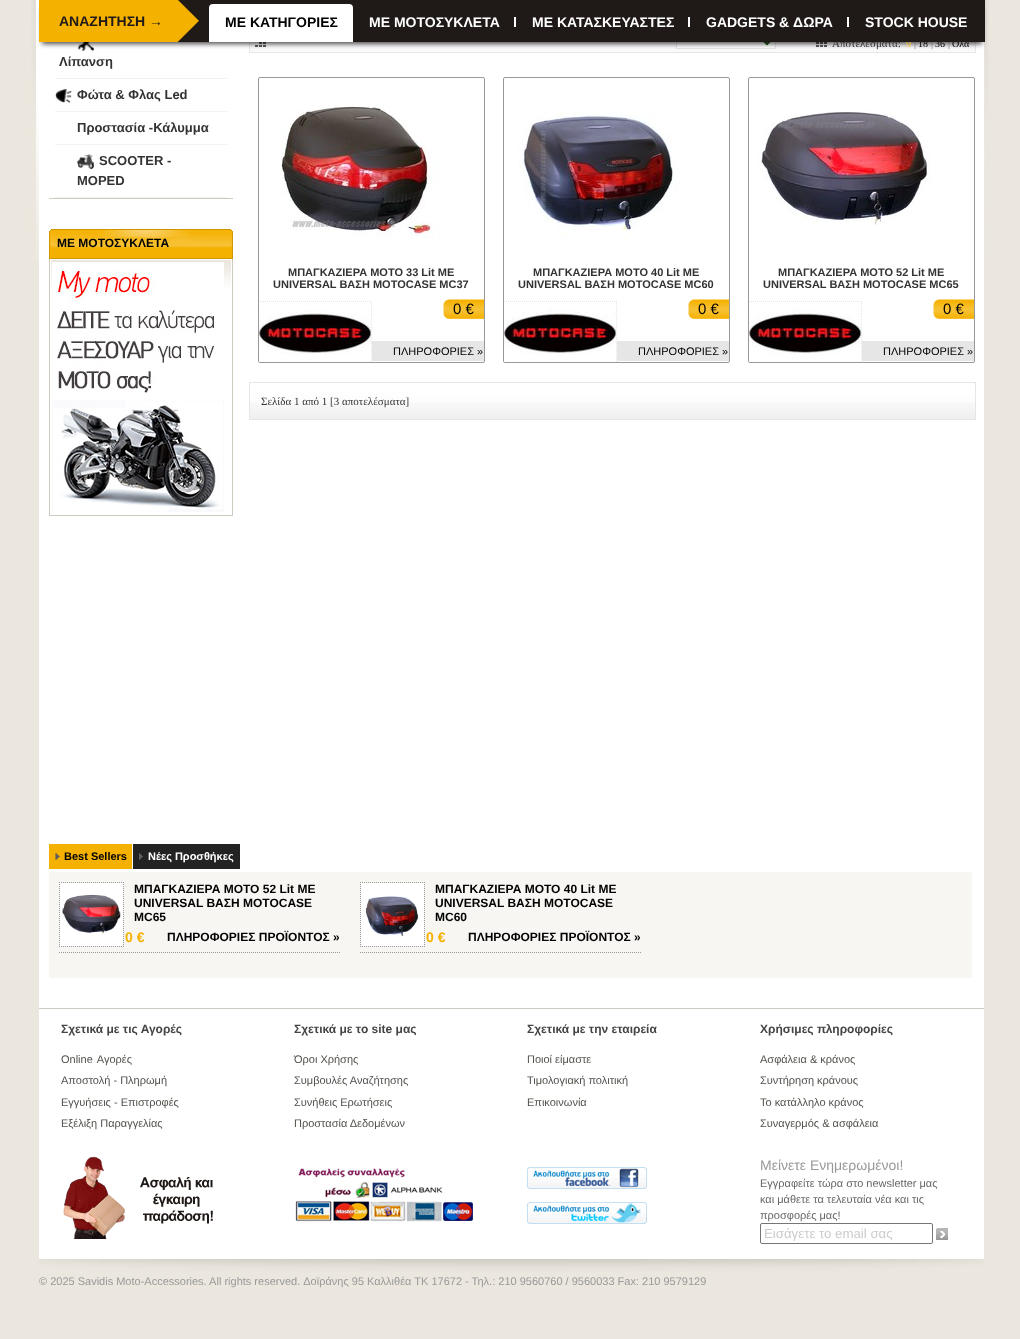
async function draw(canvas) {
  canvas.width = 1020
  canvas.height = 1339
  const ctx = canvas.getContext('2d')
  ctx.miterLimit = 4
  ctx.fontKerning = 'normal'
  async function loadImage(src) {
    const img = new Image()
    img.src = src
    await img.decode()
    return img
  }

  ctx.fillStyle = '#ebe7de'
  ctx.fillRect(0, 0, 1020, 1339)
  ctx.drawImage(await loadImage('image0.png'), 31, 0, 958, 260)
  ctx.fillStyle = '#fff'
  ctx.fillRect(39, 42, 945, 1217)
  ctx.drawImage(await loadImage('image1.png'), 39, 1259, 945, 14)
  ctx.drawImage(await loadImage('image3.png'), 78, 42, 16, 9)
  ctx.fillStyle = '#fafafa'
  ctx.fillRect(250, 42, 725, 10)
  ctx.strokeStyle = '#e6e6e6'
  ctx.strokeRect(249.5, -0.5, 726, 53)
  ctx.drawImage(await loadImage('image9.png'), 255, 42, 11, 5)
  ctx.fillStyle = '#fff'
  ctx.fillRect(677, 42, 98, 6)
  ctx.strokeRect(676.5, 34.5, 99, 14)
  ctx.beginPath()
  ctx.moveTo(763, 40)
  ctx.lineTo(767, 44)
  ctx.lineTo(771, 40)
  ctx.strokeStyle = '#22531b'
  ctx.lineWidth = 2
  ctx.stroke()
  ctx.drawImage(await loadImage('image10.png'), 816, 42, 11, 5)
  ctx.fillStyle = '#000000b3'
  ctx.filter = 'blur(2.5px)'
  ctx.beginPath()
  ctx.rect(42, 8, 940, 36)
  ctx.fill()
  ctx.filter = 'none'
  ctx.font = '11px Liberation Serif'
  ctx.fillStyle = '#333'
  ctx.fillText('Αποτελέσματα:', 832, 47)
  ctx.font = '10px Liberation Serif'
  ctx.fillStyle = '#f7c030'
  ctx.fillText('9', 906, 47)
  ctx.fillStyle = '#666'
  ctx.fillText('|', 914, 47)
  ctx.fillStyle = '#000'
  ctx.fillText('18', 918, 47)
  ctx.fillStyle = '#666'
  ctx.fillText('|', 931, 47)
  ctx.fillStyle = '#000'
  ctx.fillText('36', 935, 47)
  ctx.fillStyle = '#666'
  ctx.fillText('|', 948, 47)
  ctx.fillStyle = '#000'
  ctx.fillText('Όλα', 952, 47)
  ctx.fillStyle = '#1f1a17'
  ctx.fillRect(177, 0, 808, 42)
  ctx.drawImage(await loadImage('image2.png'), 39, 0, 160, 42)
  ctx.font = 'bold 14px Liberation Sans'
  ctx.fillText('ΑΝΑΖΗΤΗΣΗ →', 59, 26)
  ctx.fillStyle = '#fff'
  ctx.beginPath()
  ctx.roundRect(209, 4, 144, 38, [4, 4, 0, 0])
  ctx.fill()
  ctx.fillStyle = '#000'
  ctx.fillText('ΜΕ ΚΑΤΗΓΟΡΙΕΣ', 225, 27)
  ctx.fillStyle = '#fff'
  ctx.fillRect(514, 17, 2, 10)
  ctx.fillText('ΜΕ ΜΟΤΟΣΥΚΛΕΤΑ', 369, 27)
  ctx.fillRect(688, 17, 2, 10)
  ctx.fillText('ΜΕ ΚΑΤΑΣΚΕΥΑΣΤΕΣ', 532, 27)
  ctx.fillRect(847, 17, 2, 10)
  ctx.fillText('GADGETS & ΔΩΡΑ', 706, 27)
  ctx.fillText('STOCK HOUSE', 865, 27)
  ctx.fillStyle = '#cfcac0'
  ctx.fillRect(49, 198, 184, 1)
  ctx.fillStyle = '#f2f2f2'
  ctx.fillRect(55, 78, 172, 1)
  ctx.font = 'bold 13px Liberation Sans'
  ctx.fillStyle = '#333'
  ctx.fillText('Λίπανση', 59, 66)
  ctx.fillStyle = '#f2f2f2'
  ctx.fillRect(55, 111, 172, 1)
  ctx.drawImage(await loadImage('image4.png'), 55, 89, 17, 14)
  ctx.fillStyle = '#333'
  ctx.fillText('Φώτα & Φλας Led', 77, 99)
  ctx.fillStyle = '#f2f2f2'
  ctx.fillRect(55, 144, 172, 1)
  ctx.fillStyle = '#333'
  ctx.fillText('Προστασία -Κάλυμμα', 77, 132)
  ctx.fillStyle = '#f2f2f2'
  ctx.fillRect(55, 197, 172, 1)
  ctx.drawImage(await loadImage('image5.png'), 77, 154, 17, 16)
  ctx.fillStyle = '#333'
  ctx.fillText('SCOOTER -', 99, 165)
  ctx.fillText('MOPED', 77, 185)
  ctx.drawImage(await loadImage('image6.png'), 49, 259, 184, 256)
  ctx.fillStyle = '#cfcac0'
  ctx.fillRect(49, 515, 184, 1)
  ctx.drawImage(await loadImage('image7.png'), 49, 229, 184, 30)
  ctx.font = 'bold 12px Liberation Sans'
  ctx.fillStyle = '#000'
  ctx.fillText('ΜΕ ΜΟΤΟΣΥΚΛΕΤΑ', 57, 247)
  ctx.drawImage(await loadImage('image8.png'), 52, 262, 172, 250)
  ctx.beginPath()
  ctx.roundRect(258.5, 77.5, 226, 285, 1.5)
  ctx.strokeStyle = '#999'
  ctx.lineWidth = 1
  ctx.stroke()
  ctx.drawImage(await loadImage('image11.png'), 281, 103, 160, 135)
  ctx.font = 'bold 11px Liberation Sans'
  ctx.fillStyle = '#333'
  ctx.fillText('ΜΠΑΓΚΑΖΙΕΡΑ ΜΟΤΟ 33 Lit ΜΕ', 288, 276)
  ctx.fillText('UNIVERSAL ΒΑΣΗ MOTOCASE MC37', 273, 288)
  ctx.fillStyle = '#fff'
  ctx.fillRect(259, 361, 1, 1)
  ctx.beginPath()
  ctx.moveTo(259, 301.5)
  ctx.lineTo(372, 301.5)
  ctx.strokeStyle = '#e6e6e6'
  ctx.setLineDash([1, 1])
  ctx.stroke()
  ctx.beginPath()
  ctx.moveTo(371.5, 301)
  ctx.lineTo(371.5, 362)
  ctx.stroke()
  ctx.drawImage(await loadImage('image12.png'), 259, 309, 112, 46)
  ctx.drawImage(await loadImage('image13.png'), 443, 299, 41, 20)
  ctx.font = '15px Liberation Sans'
  ctx.fillStyle = '#000'
  ctx.fillText('0 €', 453, 314)
  ctx.fillStyle = '#e6e6e6'
  ctx.fillRect(372, 341, 112, 20)
  ctx.font = '11px Liberation Sans'
  ctx.fillStyle = '#000'
  ctx.fillText('ΠΛΗΡΟΦΟΡΙΕΣ »', 393, 355)
  ctx.beginPath()
  ctx.roundRect(503.5, 77.5, 226, 285, 1.5)
  ctx.strokeStyle = '#999'
  ctx.setLineDash([])
  ctx.stroke()
  ctx.drawImage(await loadImage('image14.png'), 518, 112, 160, 126)
  ctx.font = 'bold 11px Liberation Sans'
  ctx.fillStyle = '#333'
  ctx.fillText('ΜΠΑΓΚΑΖΙΕΡΑ ΜΟΤΟ 40 Lit ΜΕ', 533, 276)
  ctx.fillText('UNIVERSAL ΒΑΣΗ MOTOCASE MC60', 518, 288)
  ctx.fillStyle = '#fff'
  ctx.fillRect(504, 361, 1, 1)
  ctx.beginPath()
  ctx.moveTo(504, 301.5)
  ctx.lineTo(617, 301.5)
  ctx.strokeStyle = '#e6e6e6'
  ctx.setLineDash([1, 1])
  ctx.stroke()
  ctx.beginPath()
  ctx.moveTo(616.5, 301)
  ctx.lineTo(616.5, 362)
  ctx.stroke()
  ctx.drawImage(await loadImage('image12.png'), 504, 309, 112, 46)
  ctx.drawImage(await loadImage('image13.png'), 688, 299, 41, 20)
  ctx.font = '15px Liberation Sans'
  ctx.fillStyle = '#000'
  ctx.fillText('0 €', 698, 314)
  ctx.fillStyle = '#e6e6e6'
  ctx.fillRect(617, 341, 112, 20)
  ctx.font = '11px Liberation Sans'
  ctx.fillStyle = '#000'
  ctx.fillText('ΠΛΗΡΟΦΟΡΙΕΣ »', 638, 355)
  ctx.beginPath()
  ctx.roundRect(748.5, 77.5, 226, 285, 1.5)
  ctx.strokeStyle = '#999'
  ctx.setLineDash([])
  ctx.stroke()
  ctx.drawImage(await loadImage('image15.png'), 755, 111, 176, 114)
  ctx.font = 'bold 11px Liberation Sans'
  ctx.fillStyle = '#333'
  ctx.fillText('ΜΠΑΓΚΑΖΙΕΡΑ ΜΟΤΟ 52 Lit ΜΕ', 778, 276)
  ctx.fillText('UNIVERSAL ΒΑΣΗ MOTOCASE MC65', 763, 288)
  ctx.fillStyle = '#fff'
  ctx.fillRect(749, 361, 1, 1)
  ctx.beginPath()
  ctx.moveTo(749, 301.5)
  ctx.lineTo(862, 301.5)
  ctx.strokeStyle = '#e6e6e6'
  ctx.setLineDash([1, 1])
  ctx.stroke()
  ctx.beginPath()
  ctx.moveTo(861.5, 301)
  ctx.lineTo(861.5, 362)
  ctx.stroke()
  ctx.drawImage(await loadImage('image12.png'), 749, 309, 112, 46)
  ctx.drawImage(await loadImage('image13.png'), 933, 299, 41, 20)
  ctx.font = '15px Liberation Sans'
  ctx.fillStyle = '#000'
  ctx.fillText('0 €', 943, 314)
  ctx.fillStyle = '#e6e6e6'
  ctx.fillRect(862, 341, 112, 20)
  ctx.font = '11px Liberation Sans'
  ctx.fillStyle = '#000'
  ctx.fillText('ΠΛΗΡΟΦΟΡΙΕΣ »', 883, 355)
  ctx.drawImage(await loadImage('image16.png'), 250, 383, 725, 36)
  ctx.setLineDash([])
  ctx.strokeRect(249.5, 382.5, 726, 37)
  ctx.font = '11px Liberation Serif'
  ctx.fillStyle = '#333'
  ctx.fillText('Σελίδα 1 από 1 [3 αποτελέσματα]', 261, 405)
  ctx.fillStyle = '#f5b100'
  ctx.fillRect(49, 844, 83, 25)
  ctx.drawImage(await loadImage('image17.png'), 55, 853, 5, 7)
  ctx.font = 'bold 11px Liberation Sans'
  ctx.fillStyle = '#000'
  ctx.fillText('Best Sellers', 64, 860)
  ctx.fillStyle = '#232323'
  ctx.fillRect(133, 844, 107, 25)
  ctx.drawImage(await loadImage('image18.png'), 139, 853, 4, 7)
  ctx.fillStyle = '#fff'
  ctx.fillText('Νέες Προσθήκες', 148, 860)
  ctx.fillStyle = '#f7f6f3'
  ctx.fillRect(49, 872, 923, 106)
  ctx.beginPath()
  ctx.moveTo(59, 952.5)
  ctx.lineTo(340, 952.5)
  ctx.strokeStyle = '#999'
  ctx.setLineDash([1, 1])
  ctx.stroke()
  ctx.beginPath()
  ctx.moveTo(59, 882.5)
  ctx.lineTo(124, 882.5)
  ctx.stroke()
  ctx.beginPath()
  ctx.moveTo(123.5, 882)
  ctx.lineTo(123.5, 947)
  ctx.stroke()
  ctx.beginPath()
  ctx.moveTo(59, 946.5)
  ctx.lineTo(124, 946.5)
  ctx.stroke()
  ctx.beginPath()
  ctx.moveTo(59.5, 882)
  ctx.lineTo(59.5, 947)
  ctx.stroke()
  ctx.drawImage(await loadImage('image19.png'), 60, 883, 63, 63)
  ctx.font = 'bold 12px Liberation Sans'
  ctx.fillStyle = '#000'
  ctx.fillText('ΜΠΑΓΚΑΖΙΕΡΑ ΜΟΤΟ 52 Lit ΜΕ', 134, 893)
  ctx.fillText('UNIVERSAL ΒΑΣΗ MOTOCASE', 134, 907)
  ctx.fillText('MC65', 134, 921)
  ctx.font = 'bold 14px Liberation Sans'
  ctx.fillStyle = '#f5b100'
  ctx.fillText('0 €', 125, 942)
  ctx.font = 'bold 12px Liberation Sans'
  ctx.fillStyle = '#000'
  ctx.fillText('ΠΛΗΡΟΦΟΡΙΕΣ ΠΡΟΪΟΝΤΟΣ »', 167, 941)
  ctx.beginPath()
  ctx.moveTo(360, 952.5)
  ctx.lineTo(641, 952.5)
  ctx.stroke()
  ctx.beginPath()
  ctx.moveTo(360, 882.5)
  ctx.lineTo(425, 882.5)
  ctx.stroke()
  ctx.beginPath()
  ctx.moveTo(424.5, 882)
  ctx.lineTo(424.5, 947)
  ctx.stroke()
  ctx.beginPath()
  ctx.moveTo(360, 946.5)
  ctx.lineTo(425, 946.5)
  ctx.stroke()
  ctx.beginPath()
  ctx.moveTo(360.5, 882)
  ctx.lineTo(360.5, 947)
  ctx.stroke()
  ctx.drawImage(await loadImage('image20.png'), 361, 883, 63, 63)
  ctx.fillText('ΜΠΑΓΚΑΖΙΕΡΑ ΜΟΤΟ 40 Lit ΜΕ', 435, 893)
  ctx.fillText('UNIVERSAL ΒΑΣΗ MOTOCASE', 435, 907)
  ctx.fillText('MC60', 435, 921)
  ctx.font = 'bold 14px Liberation Sans'
  ctx.fillStyle = '#f5b100'
  ctx.fillText('0 €', 426, 942)
  ctx.font = 'bold 12px Liberation Sans'
  ctx.fillStyle = '#000'
  ctx.fillText('ΠΛΗΡΟΦΟΡΙΕΣ ΠΡΟΪΟΝΤΟΣ »', 468, 941)
  ctx.fillStyle = '#cacbc3'
  ctx.fillRect(39, 1008, 945, 1)
  ctx.fillStyle = '#444'
  ctx.fillText('Σχετικά με τις Αγορές', 61, 1033)
  ctx.wordSpacing = '1px'
  ctx.font = '11px Liberation Sans'
  ctx.fillStyle = '#53514c'
  ctx.fillText('Online Αγορές', 61, 1063)
  ctx.wordSpacing = '0px'
  ctx.fillText('Αποστολή - Πληρωμή', 61, 1084)
  ctx.fillText('Εγγυήσεις - Επιστροφές', 61, 1106)
  ctx.fillText('Εξέλιξη Παραγγελίας', 61, 1127)
  ctx.font = 'bold 12px Liberation Sans'
  ctx.fillStyle = '#444'
  ctx.fillText('Σχετικά με το site μας', 294, 1033)
  ctx.font = '11px Liberation Sans'
  ctx.fillStyle = '#53514c'
  ctx.fillText('Όροι Χρήσης', 294, 1063)
  ctx.fillText('Συμβουλές Αναζήτησης', 294, 1084)
  ctx.fillText('Συνήθεις Ερωτήσεις', 294, 1106)
  ctx.fillText('Προστασία Δεδομένων', 294, 1127)
  ctx.font = 'bold 12px Liberation Sans'
  ctx.fillStyle = '#444'
  ctx.fillText('Σχετικά με την εταιρεία', 527, 1033)
  ctx.font = '11px Liberation Sans'
  ctx.fillStyle = '#53514c'
  ctx.fillText('Ποιοί είμαστε', 527, 1063)
  ctx.fillText('Τιμολογιακή πολιτική', 527, 1084)
  ctx.fillText('Επικοινωνία', 527, 1106)
  ctx.font = 'bold 12px Liberation Sans'
  ctx.fillStyle = '#444'
  ctx.fillText('Χρήσιμες πληροφορίες', 760, 1033)
  ctx.font = '11px Liberation Sans'
  ctx.fillStyle = '#53514c'
  ctx.fillText('Ασφάλεια & κράνος', 760, 1063)
  ctx.fillText('Συντήρηση κράνους', 760, 1084)
  ctx.fillText('Το κατάλληλο κράνος', 760, 1106)
  ctx.fillText('Συναγερμός & ασφάλεια', 760, 1127)
  ctx.drawImage(await loadImage('image21.png'), 63, 1156, 150, 83)
  ctx.drawImage(await loadImage('image22.png'), 295, 1168, 178, 54)
  ctx.drawImage(await loadImage('image23.png'), 527, 1167, 120, 22)
  ctx.drawImage(await loadImage('image24.png'), 527, 1202, 120, 22)
  ctx.font = '14px Liberation Sans'
  ctx.fillStyle = '#999'
  ctx.fillText('Μείνετε Ενημερωμένοι!', 760, 1170)
  ctx.font = '11px Liberation Sans'
  ctx.fillStyle = '#666'
  ctx.fillText('Εγγραφείτε τώρα στο newsletter μας', 760, 1187)
  ctx.fillText('και μάθετε τα τελευταία νέα και τις', 760, 1203)
  ctx.fillText('προσφορές μας!', 760, 1219)
  ctx.beginPath()
  ctx.roundRect(760.5, 1223.5, 172, 20, 1.5)
  ctx.strokeStyle = '#767676'
  ctx.setLineDash([])
  ctx.stroke()
  ctx.font = '13.25px Liberation Sans'
  ctx.fillStyle = '#ccc'
  ctx.fillText('Εισάγετε το email σας', 764, 1238)
  ctx.drawImage(await loadImage('image25.png'), 936, 1228, 12, 12)
  ctx.font = '11px Liberation Sans'
  ctx.fillStyle = '#999'
  ctx.fillText('© 2025 Savidis Moto-Accessories. All rights reserved. Δοϊράνης 95 Καλλιθέα ΤΚ 17672 - Τηλ.: 210 9560760 / 9560033 Fax: 210 9579129', 39, 1285)
}

draw(document.querySelector('canvas'))
